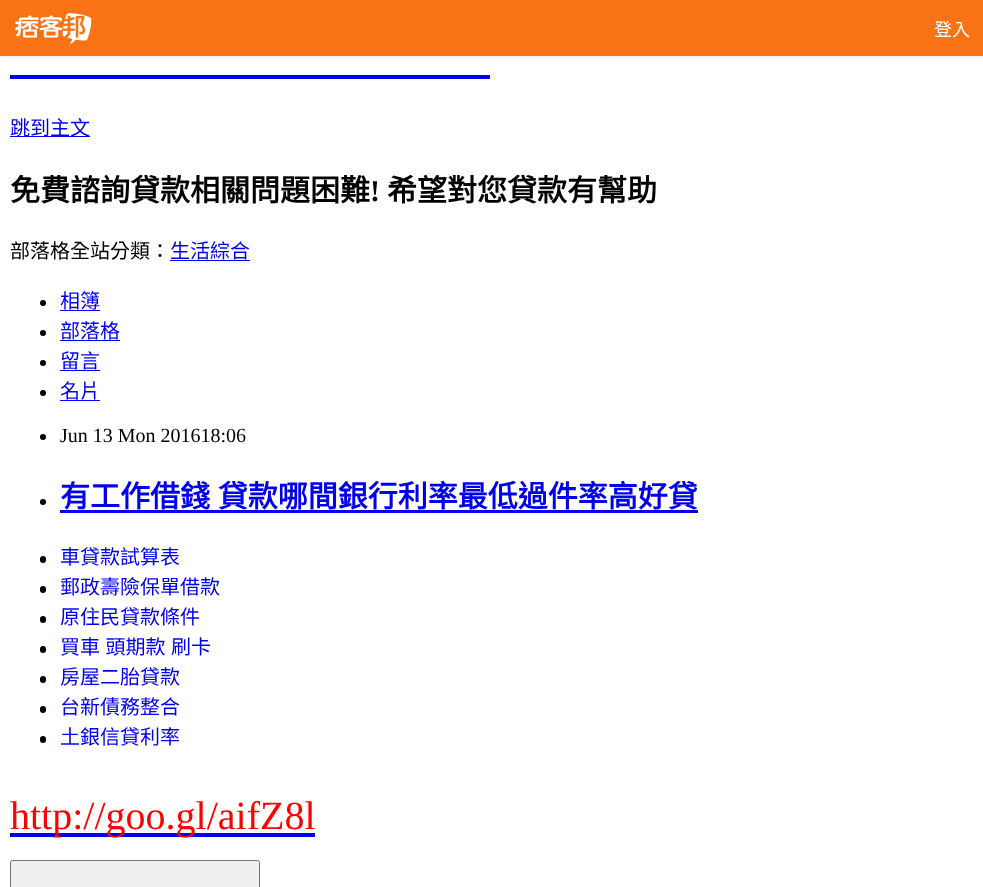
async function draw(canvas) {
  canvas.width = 983
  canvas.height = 887
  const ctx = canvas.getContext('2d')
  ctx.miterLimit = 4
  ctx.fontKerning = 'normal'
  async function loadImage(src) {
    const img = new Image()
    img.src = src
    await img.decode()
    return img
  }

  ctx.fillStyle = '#fff'
  ctx.fillRect(0, 0, 983, 887)
  ctx.fillStyle = '#0000000d'
  ctx.filter = 'blur(1px)'
  ctx.beginPath()
  ctx.rect(0, 1, 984, 57)
  ctx.fill()
  ctx.filter = 'none'
  ctx.fillStyle = '#f97316'
  ctx.fillRect(0, 0, 983, 56)
  ctx.drawImage(await loadImage('image0.png'), 15, 13, 77, 31)
  ctx.font = '18px Noto Sans CJK TC'
  ctx.fillStyle = '#fff'
  ctx.fillText('登入', 934, 36)
  ctx.fillStyle = '#00e'
  ctx.fillRect(10, 75, 480, 4)
  ctx.fillRect(10, 136, 80, 1)
  ctx.font = '20px Noto Sans CJK TC'
  ctx.fillText('跳到主文', 10, 135)
  ctx.font = 'bold 30px Noto Sans CJK TC'
  ctx.fillStyle = '#000'
  ctx.fillText('免費諮詢貸款相關問題困難', 10, 201)
  ctx.font = 'bold 30px Liberation Serif'
  ctx.fillText('!', 370, 201)
  ctx.font = 'bold 30px Noto Sans CJK TC'
  ctx.fillText('希望對您貸款有幫助', 387, 201)
  ctx.font = '20px Noto Sans CJK TC'
  ctx.fillText('部落格全站分類：', 10, 258)
  ctx.fillStyle = '#00e'
  ctx.fillText('生活綜合', 170, 258)
  ctx.fillRect(170, 260, 80, 1)
  ctx.fillStyle = '#000'
  ctx.beginPath()
  ctx.arc(43, 303, 3, 0, 2 * Math.PI)
  ctx.fill()
  ctx.fillStyle = '#00e'
  ctx.fillText('相簿', 60, 308)
  ctx.fillRect(60, 310, 40, 1)
  ctx.fillStyle = '#000'
  ctx.beginPath()
  ctx.arc(43, 333, 3, 0, 2 * Math.PI)
  ctx.fill()
  ctx.fillStyle = '#00e'
  ctx.fillText('部落格', 60, 338)
  ctx.fillRect(60, 340, 60, 1)
  ctx.fillStyle = '#000'
  ctx.beginPath()
  ctx.arc(43, 363, 3, 0, 2 * Math.PI)
  ctx.fill()
  ctx.fillStyle = '#00e'
  ctx.fillText('留言', 60, 368)
  ctx.fillRect(60, 370, 40, 1)
  ctx.fillStyle = '#000'
  ctx.beginPath()
  ctx.arc(43, 393, 3, 0, 2 * Math.PI)
  ctx.fill()
  ctx.fillStyle = '#00e'
  ctx.fillText('名片', 60, 398)
  ctx.fillRect(60, 400, 40, 1)
  ctx.fillStyle = '#000'
  ctx.beginPath()
  ctx.arc(43, 437, 3, 0, 2 * Math.PI)
  ctx.fill()
  ctx.font = '20px Liberation Serif'
  ctx.fillText('Jun 13 Mon 201618:06', 60, 442)
  ctx.beginPath()
  ctx.arc(43, 502, 3, 0, 2 * Math.PI)
  ctx.fill()
  ctx.wordSpacing = '1px'
  ctx.font = 'bold 30px Noto Sans CJK TC'
  ctx.fillStyle = '#00e'
  ctx.fillText('有工作借錢 貸款哪間銀行利率最低過件率高好貸', 60, 507)
  ctx.fillRect(60, 510, 638, 3)
  ctx.fillStyle = '#000'
  ctx.beginPath()
  ctx.roundRect(40, 556, 6, 7, 3)
  ctx.fill()
  ctx.wordSpacing = '0px'
  ctx.font = '20px Noto Sans CJK TC'
  ctx.fillStyle = '#00e'
  ctx.fillText('車貸款試算表', 60, 564)
  ctx.fillStyle = '#000'
  ctx.beginPath()
  ctx.roundRect(40, 586, 6, 7, 3)
  ctx.fill()
  ctx.fillStyle = '#00e'
  ctx.fillText('郵政壽險保單借款', 60, 594)
  ctx.fillStyle = '#000'
  ctx.beginPath()
  ctx.roundRect(40, 616, 6, 7, 3)
  ctx.fill()
  ctx.fillStyle = '#00e'
  ctx.fillText('原住民貸款條件', 60, 624)
  ctx.fillStyle = '#000'
  ctx.beginPath()
  ctx.roundRect(40, 646, 6, 7, 3)
  ctx.fill()
  ctx.wordSpacing = '1px'
  ctx.fillStyle = '#00e'
  ctx.fillText('買車 頭期款 刷卡', 60, 654)
  ctx.fillStyle = '#000'
  ctx.beginPath()
  ctx.roundRect(40, 676, 6, 7, 3)
  ctx.fill()
  ctx.wordSpacing = '0px'
  ctx.fillStyle = '#00e'
  ctx.fillText('房屋二胎貸款', 60, 684)
  ctx.fillStyle = '#000'
  ctx.beginPath()
  ctx.roundRect(40, 706, 6, 7, 3)
  ctx.fill()
  ctx.fillStyle = '#00e'
  ctx.fillText('台新債務整合', 60, 714)
  ctx.fillStyle = '#000'
  ctx.beginPath()
  ctx.roundRect(40, 736, 6, 7, 3)
  ctx.fill()
  ctx.fillStyle = '#00e'
  ctx.fillText('土銀信貸利率', 60, 744)
  ctx.fillRect(10, 833, 305, 4)
  ctx.font = '40px Liberation Serif'
  ctx.fillStyle = '#f00'
  ctx.fillText('http://goo.gl/aifZ8l', 10, 829)
  ctx.fillStyle = '#efefef'
  ctx.beginPath()
  ctx.roundRect(10.5, 860.5, 249, 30, 2)
  ctx.fill()
  ctx.strokeStyle = '#767676'
  ctx.stroke()
}

draw(document.querySelector('canvas'))
